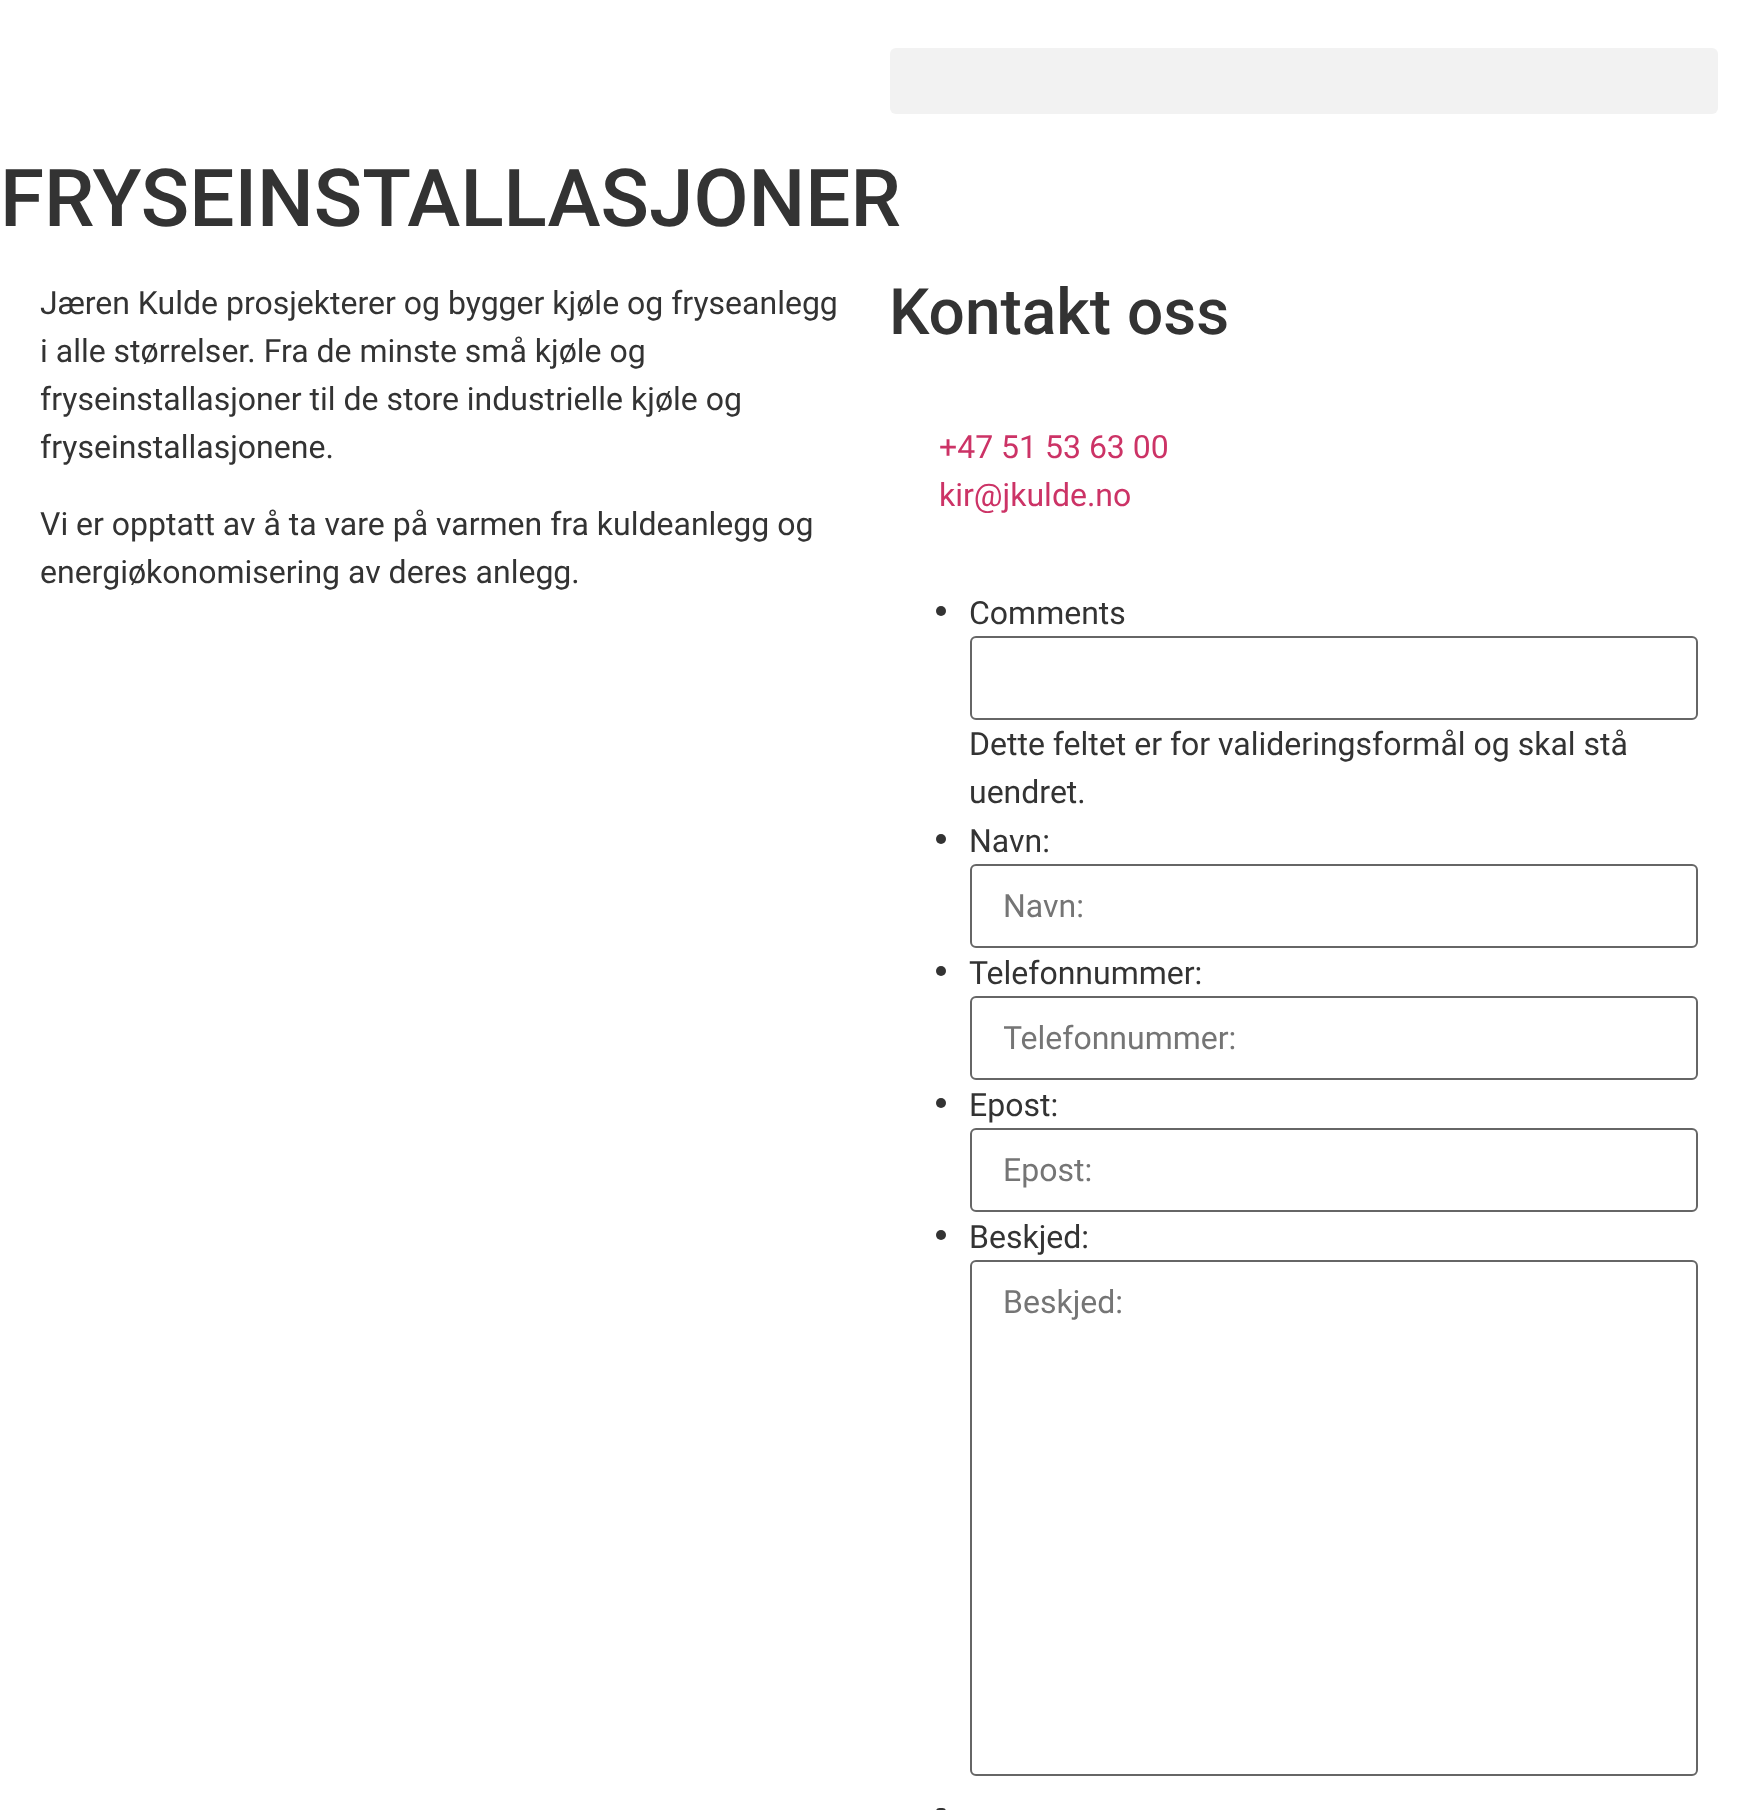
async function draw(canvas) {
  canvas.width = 1737
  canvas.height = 1810
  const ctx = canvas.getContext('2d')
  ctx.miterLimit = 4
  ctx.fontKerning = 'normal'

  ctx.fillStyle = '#fff'
  ctx.fillRect(0, 0, 1737, 1810)
  ctx.fillStyle = '#f2f2f2'
  ctx.beginPath()
  ctx.roundRect(890, 48, 828, 66, 6)
  ctx.fill()
  ctx.font = '500 80px Roboto'
  ctx.fillStyle = '#333'
  ctx.fillText('FRYSEINSTALLASJONER', 0, 226)
  ctx.font = '32px Roboto'
  ctx.fillText('Jæren Kulde prosjekterer og bygger kjøle og fryseanlegg', 40, 314)
  ctx.fillText('i alle størrelser. Fra de minste små kjøle og', 40, 362)
  ctx.fillText('fryseinstallasjoner til de store industrielle kjøle og', 40, 410)
  ctx.fillText('fryseinstallasjonene.', 40, 458)
  ctx.fillText('Vi er opptatt av å ta vare på varmen fra kuldeanlegg og', 40, 535)
  ctx.fillText('energiøkonomisering av deres anlegg.', 40, 583)
  ctx.font = '500 64px Roboto'
  ctx.fillText('Kontakt oss', 889, 334)
  ctx.font = '32px Roboto'
  ctx.fillStyle = '#c36'
  ctx.fillText('+47 51 53 63 00', 939, 458)
  ctx.fillText('kir@jkulde.no', 939, 506)
  ctx.fillStyle = '#333'
  ctx.beginPath()
  ctx.arc(941, 611, 5, 0, 2 * Math.PI)
  ctx.fill()
  ctx.fillText('Comments', 969, 624)
  ctx.beginPath()
  ctx.roundRect(971, 637, 726, 82, 5)
  ctx.strokeStyle = '#666'
  ctx.lineWidth = 2
  ctx.stroke()
  ctx.fillText('Dette feltet er for valideringsformål og skal stå', 969, 755)
  ctx.fillText('uendret.', 969, 803)
  ctx.beginPath()
  ctx.arc(941, 839, 5, 0, 2 * Math.PI)
  ctx.fill()
  ctx.fillText('Navn:', 969, 852)
  ctx.beginPath()
  ctx.roundRect(971, 865, 726, 82, 5)
  ctx.stroke()
  ctx.fillStyle = '#757575'
  ctx.fillText('Navn:', 1003, 917)
  ctx.fillStyle = '#333'
  ctx.beginPath()
  ctx.arc(941, 971, 5, 0, 2 * Math.PI)
  ctx.fill()
  ctx.fillText('Telefonnummer:', 969, 984)
  ctx.beginPath()
  ctx.roundRect(971, 997, 726, 82, 5)
  ctx.stroke()
  ctx.save()
  ctx.beginPath()
  ctx.rect(1004, 1018, 660, 38)
  ctx.clip()
  ctx.fillStyle = '#757575'
  ctx.fillText('Telefonnummer:', 1003, 1049)
  ctx.restore()
  ctx.beginPath()
  ctx.arc(941, 1103, 5, 0, 2 * Math.PI)
  ctx.fill()
  ctx.fillText('Epost:', 969, 1116)
  ctx.beginPath()
  ctx.roundRect(971, 1129, 726, 82, 5)
  ctx.stroke()
  ctx.fillStyle = '#757575'
  ctx.fillText('Epost:', 1003, 1181)
  ctx.fillStyle = '#333'
  ctx.beginPath()
  ctx.arc(941, 1235, 5, 0, 2 * Math.PI)
  ctx.fill()
  ctx.fillText('Beskjed:', 969, 1248)
  ctx.beginPath()
  ctx.roundRect(971, 1261, 726, 514, 5)
  ctx.stroke()
  ctx.fillStyle = '#757575'
  ctx.fillText('Beskjed:', 1003, 1313)
  ctx.fillStyle = '#333'
  ctx.beginPath()
  ctx.roundRect(936, 1808, 10, 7, 5)
  ctx.fill()
}

draw(document.querySelector('canvas'))
